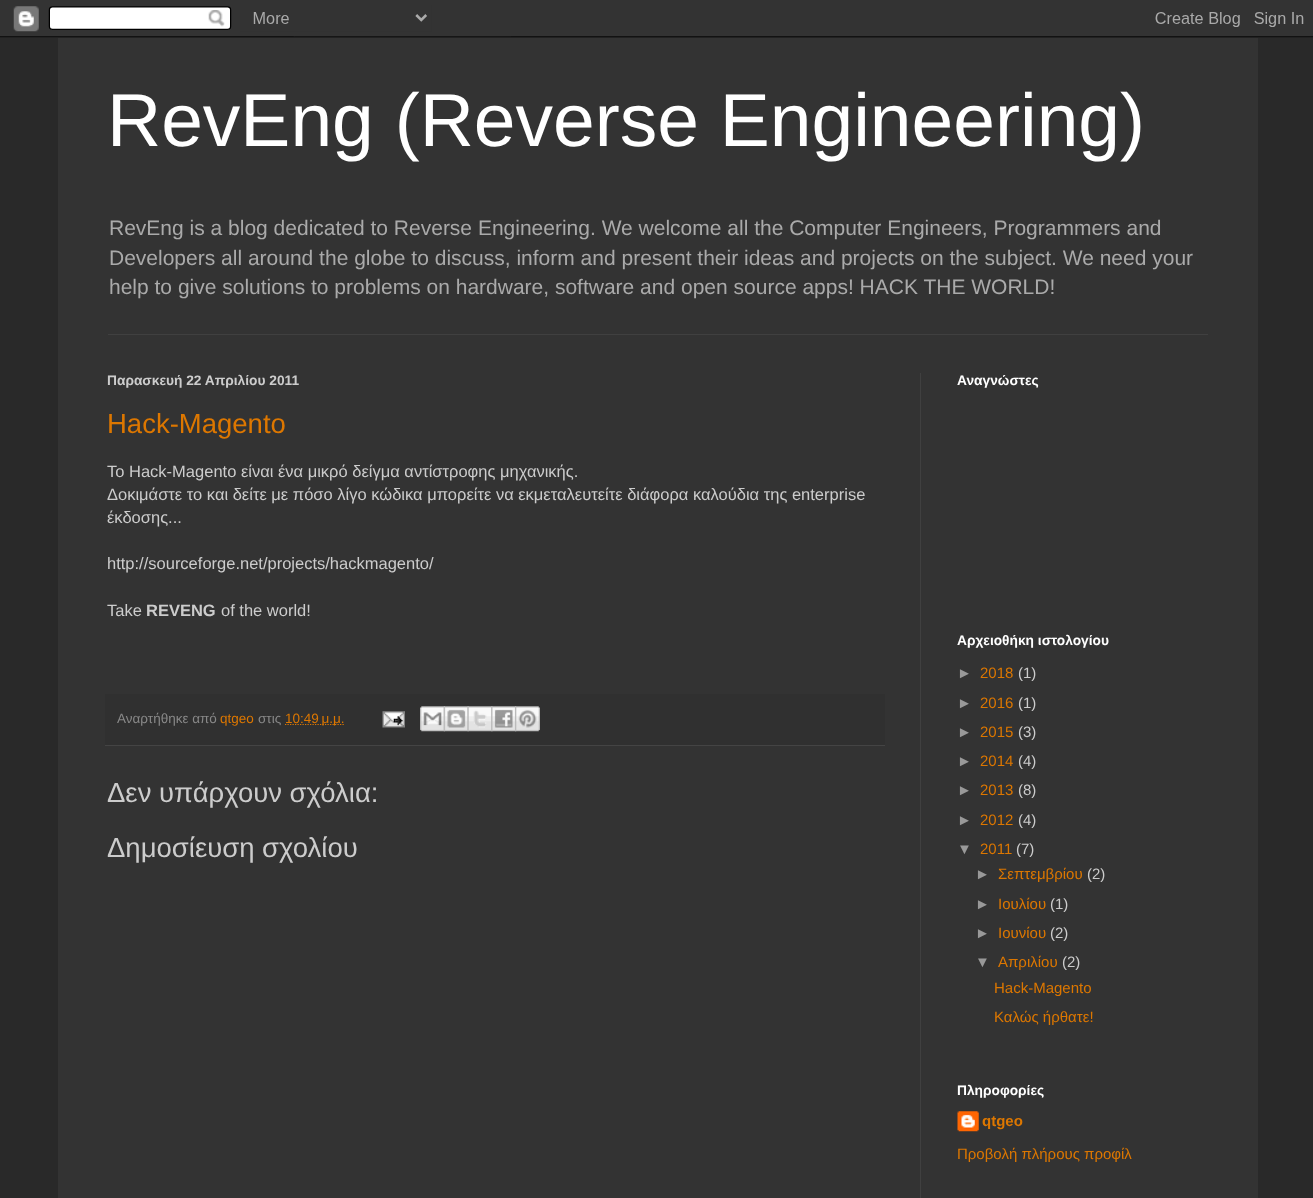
async function draw(canvas) {
  canvas.width = 1313
  canvas.height = 1198
  const ctx = canvas.getContext('2d')
  ctx.miterLimit = 4
  ctx.fontKerning = 'normal'
  async function loadImage(src) {
    const img = new Image()
    img.src = src
    await img.decode()
    return img
  }

  ctx.fillStyle = '#292929'
  ctx.fillRect(0, 0, 1313, 1198)
  ctx.drawImage(await loadImage('image0.png'), 0, 0, 1313, 38)
  ctx.fillStyle = '#333'
  ctx.fillRect(58, 38, 1200, 1160)
  ctx.font = '75px Liberation Sans'
  ctx.fillStyle = '#fff'
  ctx.fillText('RevEng (Reverse Engineering)', 107, 146)
  ctx.font = '21px Liberation Sans'
  ctx.fillStyle = '#aaa'
  ctx.fillText('RevEng is a blog dedicated to Reverse Engineering. We welcome all the Computer Engineers, Programmers and', 109, 235)
  ctx.fillText('Developers all around the globe to discuss, inform and present their ideas and projects on the subject. We need your', 109, 265)
  ctx.fillText('help to give solutions to problems on hardware, software and open source apps! HACK THE WORLD!', 109, 294)
  ctx.fillStyle = '#404040'
  ctx.fillRect(108, 334, 1100, 1)
  ctx.fillRect(920, 373, 1, 825)
  ctx.font = 'bold 13.75px Liberation Sans'
  ctx.fillStyle = '#ccc'
  ctx.fillText('Παρασκευή 22 Απριλίου 2011', 107, 385)
  ctx.font = '27.5px Liberation Sans'
  ctx.fillStyle = '#d70'
  ctx.fillText('Hack-Magento', 107, 433)
  ctx.font = '16.5px Liberation Sans'
  ctx.fillStyle = '#ccc'
  ctx.fillText('Το Hack-Magento είναι ένα μικρό δείγμα αντίστροφης μηχανικής.', 107, 477)
  ctx.fillText('Δοκιμάστε το και δείτε με πόσο λίγο κώδικα μπορείτε να εκμεταλευτείτε διάφορα καλούδια της enterprise', 107, 500)
  ctx.fillText('έκδοσης...', 107, 523)
  ctx.fillText('http://sourceforge.net/projects/hackmagento/', 107, 569)
  ctx.fillText('Take', 107, 616)
  ctx.font = 'bold 16.5px Liberation Sans'
  ctx.fillText('REVENG', 146, 616)
  ctx.font = '16.5px Liberation Sans'
  ctx.fillText('of the world!', 221, 616)
  ctx.fillStyle = '#303030'
  ctx.fillRect(105, 694, 780, 51)
  ctx.fillStyle = '#444'
  ctx.fillRect(105, 745, 780, 1)
  ctx.font = '13.5px Liberation Sans'
  ctx.fillStyle = '#888'
  ctx.fillText('Αναρτήθηκε από', 117, 723)
  ctx.fillStyle = '#d70'
  ctx.fillText('qtgeo', 220, 723)
  ctx.fillStyle = '#888'
  ctx.fillText('στις', 258, 723)
  ctx.beginPath()
  ctx.moveTo(285, 724.5)
  ctx.lineTo(344.5, 724.5)
  ctx.strokeStyle = '#d70'
  ctx.lineWidth = 1.2
  ctx.setLineDash([1.25, 1.25])
  ctx.stroke()
  ctx.fillStyle = '#d70'
  ctx.fillText('10:49 μ.μ.', 285, 723)
  ctx.drawImage(await loadImage('image1.png'), 382, 711, 23, 17)
  ctx.drawImage(await loadImage('image2.png'), 420, 706, 25, 26)
  ctx.drawImage(await loadImage('image3.png'), 443, 706, 26, 26)
  ctx.drawImage(await loadImage('image4.png'), 467, 706, 26, 26)
  ctx.drawImage(await loadImage('image5.png'), 491, 706, 26, 26)
  ctx.drawImage(await loadImage('image6.png'), 515, 706, 25, 26)
  ctx.font = '27.5px Liberation Sans'
  ctx.fillStyle = '#ccc'
  ctx.fillText('Δεν υπάρχουν σχόλια:', 107, 802)
  ctx.fillText('Δημοσίευση σχολίου', 107, 857)
  ctx.font = 'bold 13.75px Liberation Sans'
  ctx.fillStyle = '#fff'
  ctx.fillText('Αναγνώστες', 957, 385)
  ctx.fillText('Αρχειοθήκη ιστολογίου', 957, 645)
  ctx.font = '15px Liberation Sans'
  ctx.fillStyle = '#999'
  ctx.fillText('►', 957, 678)
  ctx.fillStyle = '#d70'
  ctx.fillText('2018', 980, 678)
  ctx.fillStyle = '#ccc'
  ctx.fillText('(1)', 1018, 678)
  ctx.fillStyle = '#999'
  ctx.fillText('►', 957, 708)
  ctx.fillStyle = '#d70'
  ctx.fillText('2016', 980, 708)
  ctx.fillStyle = '#ccc'
  ctx.fillText('(1)', 1018, 708)
  ctx.fillStyle = '#999'
  ctx.fillText('►', 957, 737)
  ctx.fillStyle = '#d70'
  ctx.fillText('2015', 980, 737)
  ctx.fillStyle = '#ccc'
  ctx.fillText('(3)', 1018, 737)
  ctx.fillStyle = '#999'
  ctx.fillText('►', 957, 766)
  ctx.fillStyle = '#d70'
  ctx.fillText('2014', 980, 766)
  ctx.fillStyle = '#ccc'
  ctx.fillText('(4)', 1018, 766)
  ctx.fillStyle = '#999'
  ctx.fillText('►', 957, 795)
  ctx.fillStyle = '#d70'
  ctx.fillText('2013', 980, 795)
  ctx.fillStyle = '#ccc'
  ctx.fillText('(8)', 1018, 795)
  ctx.fillStyle = '#999'
  ctx.fillText('►', 957, 825)
  ctx.fillStyle = '#d70'
  ctx.fillText('2012', 980, 825)
  ctx.fillStyle = '#ccc'
  ctx.fillText('(4)', 1018, 825)
  ctx.fillStyle = '#999'
  ctx.fillText('▼', 957, 854)
  ctx.fillStyle = '#d70'
  ctx.fillText('2011', 980, 854)
  ctx.fillStyle = '#ccc'
  ctx.fillText('(7)', 1016, 854)
  ctx.fillStyle = '#999'
  ctx.fillText('►', 975, 879)
  ctx.fillStyle = '#d70'
  ctx.fillText('Σεπτεμβρίου', 998, 879)
  ctx.fillStyle = '#ccc'
  ctx.fillText('(2)', 1087, 879)
  ctx.fillStyle = '#999'
  ctx.fillText('►', 975, 909)
  ctx.fillStyle = '#d70'
  ctx.fillText('Ιουλίου', 998, 909)
  ctx.fillStyle = '#ccc'
  ctx.fillText('(1)', 1050, 909)
  ctx.fillStyle = '#999'
  ctx.fillText('►', 975, 938)
  ctx.fillStyle = '#d70'
  ctx.fillText('Ιουνίου', 998, 938)
  ctx.fillStyle = '#ccc'
  ctx.fillText('(2)', 1050, 938)
  ctx.fillStyle = '#999'
  ctx.fillText('▼', 975, 967)
  ctx.fillStyle = '#d70'
  ctx.fillText('Απριλίου', 998, 967)
  ctx.fillStyle = '#ccc'
  ctx.fillText('(2)', 1062, 967)
  ctx.fillStyle = '#d70'
  ctx.fillText('Hack-Magento', 994, 993)
  ctx.fillText('Καλώς ήρθατε!', 994, 1022)
  ctx.font = 'bold 13.75px Liberation Sans'
  ctx.fillStyle = '#fff'
  ctx.fillText('Πληροφορίες', 957, 1095)
  ctx.drawImage(await loadImage('image7.png'), 957, 1111, 22, 21)
  ctx.font = 'bold 15px Liberation Sans'
  ctx.fillStyle = '#d70'
  ctx.fillText('qtgeo', 982, 1126)
  ctx.font = '15px Liberation Sans'
  ctx.fillText('Προβολή πλήρους προφίλ', 957, 1159)
}

draw(document.querySelector('canvas'))
